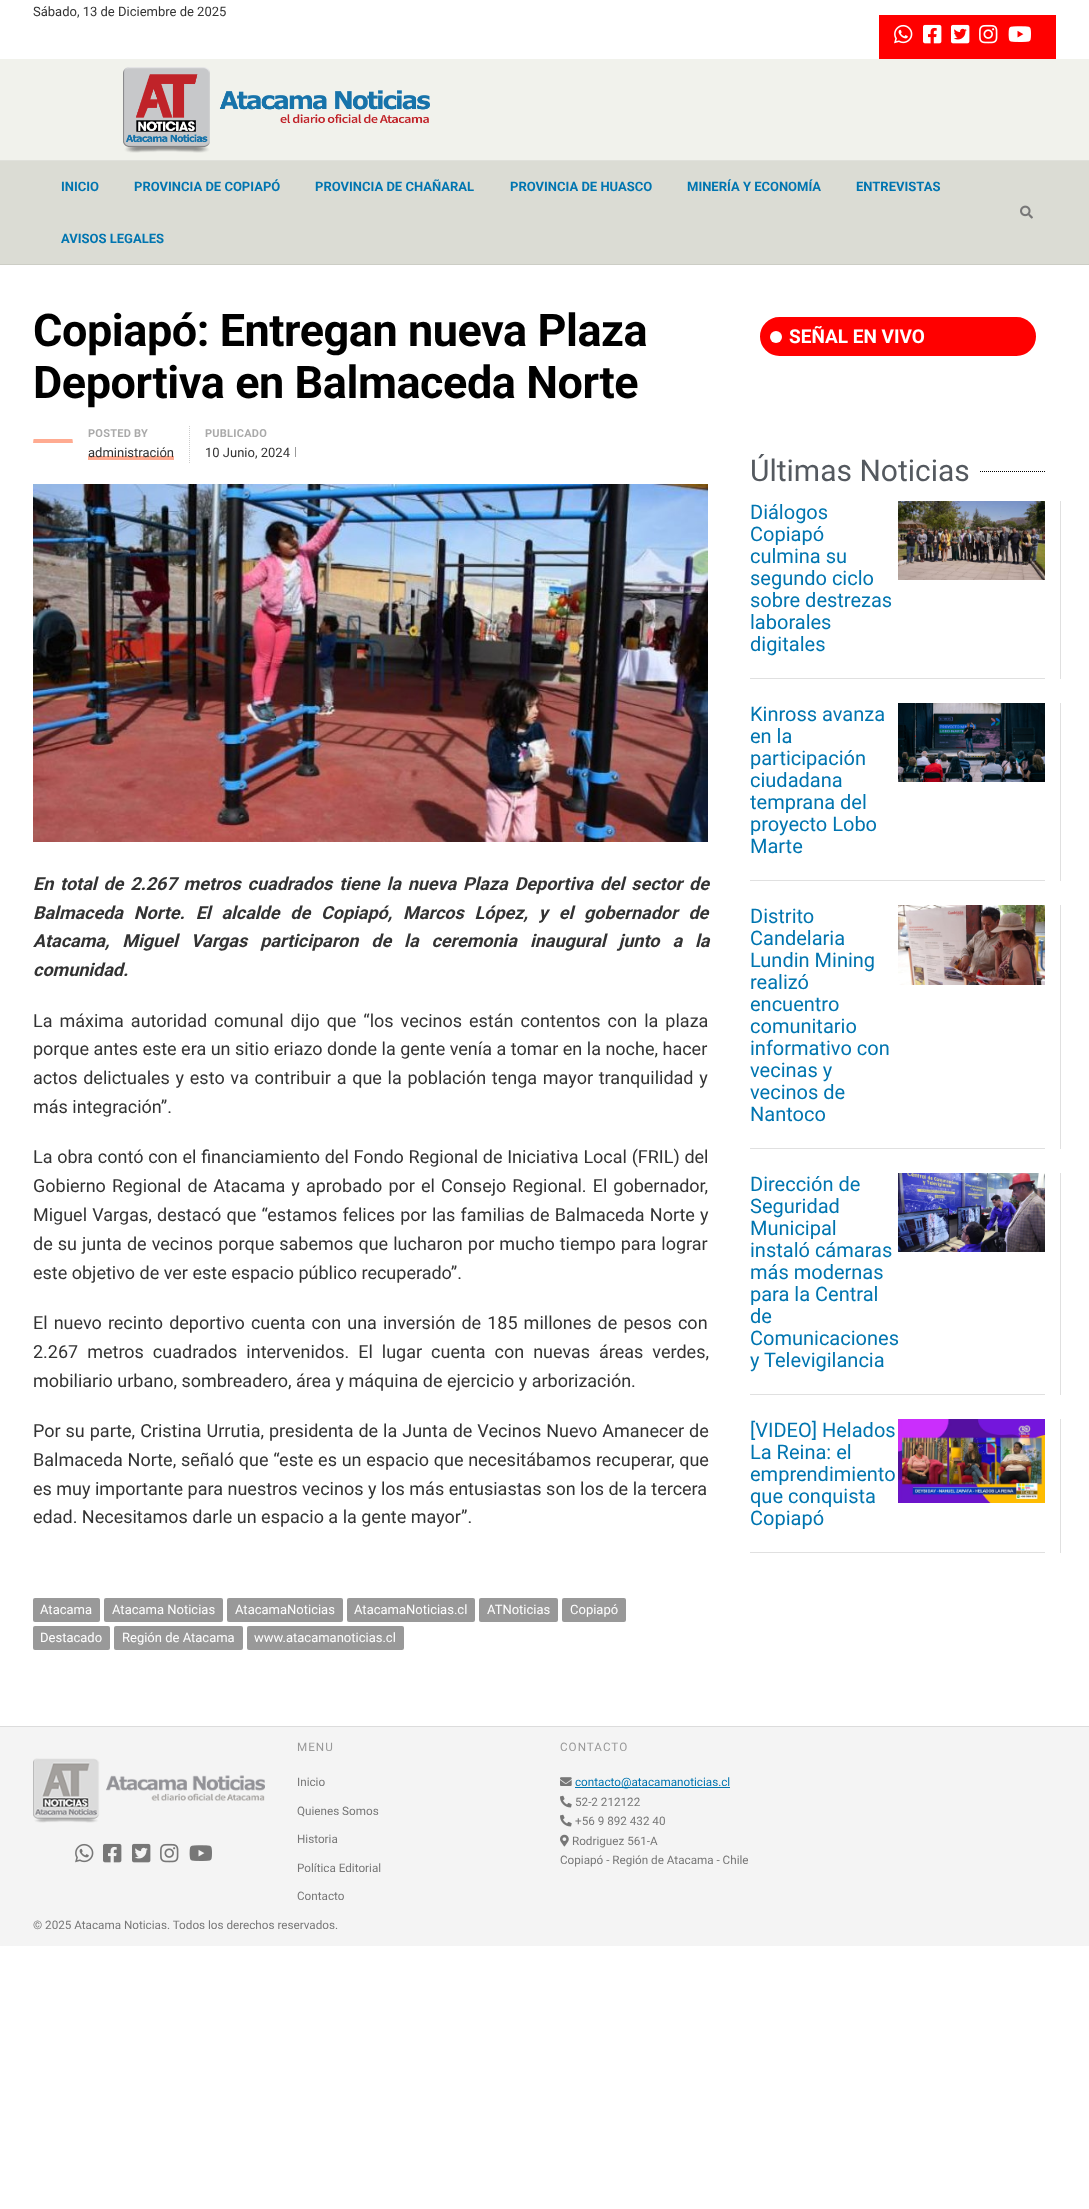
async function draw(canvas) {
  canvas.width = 1089
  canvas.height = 2209
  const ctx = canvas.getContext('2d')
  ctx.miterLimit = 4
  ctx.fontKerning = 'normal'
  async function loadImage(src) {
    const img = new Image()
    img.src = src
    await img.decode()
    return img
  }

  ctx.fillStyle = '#fff'
  ctx.fillRect(0, 0, 1089, 2209)
  ctx.font = '13px Roboto'
  ctx.fillStyle = '#333'
  ctx.fillText('Sábado, 13 de Diciembre de 2025', 33, 16)
  ctx.fillStyle = '#f00'
  ctx.fillRect(879, 15, 177, 44)
  ctx.drawImage(await loadImage('image0.png'), 894, 24, 19, 20)
  ctx.drawImage(await loadImage('image1.png'), 923, 24, 19, 20)
  ctx.drawImage(await loadImage('image2.png'), 951, 24, 19, 20)
  ctx.drawImage(await loadImage('image3.png'), 979, 24, 19, 20)
  ctx.drawImage(await loadImage('image4.png'), 1008, 26, 23, 16)
  ctx.fillStyle = '#f1f2ec'
  ctx.fillRect(0, 59, 1089, 101)
  ctx.fillStyle = '#e0e1db'
  ctx.fillRect(0, 160, 1089, 1)
  ctx.drawImage(await loadImage('image5.png'), 123, 67, 307, 86)
  ctx.fillStyle = '#dbdcd4'
  ctx.fillRect(0, 161, 1089, 103)
  ctx.fillStyle = '#cccdc5'
  ctx.fillRect(0, 264, 1089, 1)
  ctx.font = 'bold 13px Roboto'
  ctx.fillStyle = '#0075b0'
  ctx.fillText('INICIO', 61, 191)
  ctx.fillText('PROVINCIA DE COPIAPÓ', 134, 191)
  ctx.fillText('PROVINCIA DE CHAÑARAL', 315, 191)
  ctx.fillText('PROVINCIA DE HUASCO', 510, 191)
  ctx.fillText('MINERÍA Y ECONOMÍA', 687, 191)
  ctx.fillText('ENTREVISTAS', 856, 191)
  ctx.fillText('AVISOS LEGALES', 61, 243)
  ctx.drawImage(await loadImage('image6.png'), 1020, 205, 13, 14)
  ctx.letterSpacing = '-0.45px'
  ctx.font = 'bold 45px Roboto'
  ctx.fillStyle = '#000'
  ctx.fillText('Copiapó: Entregan nueva Plaza', 33, 346)
  ctx.fillText('Deportiva en Balmaceda Norte', 33, 398)
  ctx.save()
  ctx.beginPath()
  ctx.roundRect(33, 424, 40, 40, 20)
  ctx.clip()
  ctx.fillStyle = '#ffab91'
  ctx.fillRect(33, 439, 40, 4)
  ctx.restore()
  ctx.beginPath()
  ctx.moveTo(189.5, 426)
  ctx.lineTo(189.5, 463)
  ctx.strokeStyle = '#ccc'
  ctx.setLineDash([1, 1])
  ctx.stroke()
  ctx.letterSpacing = '0.25px'
  ctx.font = 'bold 11px Roboto'
  ctx.fillStyle = '#aaa'
  ctx.fillText('POSTED BY', 88, 437)
  ctx.fillStyle = '#ffab91'
  ctx.fillRect(88, 456, 86, 4)
  ctx.letterSpacing = '0px'
  ctx.font = '13px Roboto'
  ctx.fillStyle = '#333'
  ctx.fillText('administración', 88, 457)
  ctx.letterSpacing = '0.25px'
  ctx.font = 'bold 11px Roboto'
  ctx.fillStyle = '#aaa'
  ctx.fillText('PUBLICADO', 205, 437)
  ctx.letterSpacing = '0px'
  ctx.font = '13px Roboto'
  ctx.fillStyle = '#333'
  ctx.fillText('10 Junio, 2024', 205, 457)
  ctx.fillStyle = '#999'
  ctx.fillRect(295, 447, 1, 10)
  ctx.drawImage(await loadImage('image7.png'), 33, 484, 675, 358)
  ctx.wordSpacing = '2.4px'
  ctx.font = 'italic bold 18px Roboto'
  ctx.fillStyle = '#333'
  ctx.fillText('En total de 2.267 metros cuadrados tiene la nueva Plaza Deportiva del sector de', 33, 890)
  ctx.wordSpacing = '6.4px'
  ctx.fillText('Balmaceda Norte. El alcalde de Copiapó, Marcos López, y el gobernador de', 33, 919)
  ctx.wordSpacing = '8.5px'
  ctx.fillText('Atacama, Miguel Vargas participaron de la ceremonia inaugural junto a la', 33, 947)
  ctx.wordSpacing = '0px'
  ctx.fillText('comunidad.', 33, 976)
  ctx.wordSpacing = '2.5px'
  ctx.font = '18px Roboto'
  ctx.fillText('La máxima autoridad comunal dijo que “los vecinos están contentos con la plaza', 33, 1027)
  ctx.wordSpacing = '0px'
  ctx.fillText('porque antes este era un sitio eriazo donde la gente venía a tomar en la noche, hacer', 33, 1055)
  ctx.wordSpacing = '1.25px'
  ctx.fillText('actos delictuales y esto va contribuir a que la población tenga mayor tranquilidad y', 33, 1084)
  ctx.wordSpacing = '0px'
  ctx.fillText('más integración”.', 33, 1113)
  ctx.wordSpacing = '0.25px'
  ctx.fillText('La obra contó con el financiamiento del Fondo Regional de Iniciativa Local (FRIL) del', 33, 1163)
  ctx.wordSpacing = '1.6px'
  ctx.fillText('Gobierno Regional de Atacama y aprobado por el Consejo Regional. El gobernador,', 33, 1192)
  ctx.wordSpacing = '0.75px'
  ctx.fillText('Miguel Vargas, destacó que “estamos felices por las familias de Balmaceda Norte y', 33, 1221)
  ctx.wordSpacing = '0.6px'
  ctx.fillText('de su junta de vecinos porque sabemos que lucharon por mucho tiempo para lograr', 33, 1250)
  ctx.wordSpacing = '0px'
  ctx.fillText('este objetivo de ver este espacio público recuperado”.', 33, 1279)
  ctx.wordSpacing = '1.6px'
  ctx.fillText('El nuevo recinto deportivo cuenta con una inversión de 185 millones de pesos con', 33, 1329)
  ctx.wordSpacing = '4.5px'
  ctx.fillText('2.267 metros cuadrados intervenidos. El lugar cuenta con nuevas áreas verdes,', 33, 1358)
  ctx.wordSpacing = '0px'
  ctx.fillText('mobiliario urbano, sombreadero, área y máquina de ejercicio y arborización.', 33, 1387)
  ctx.wordSpacing = '0.5px'
  ctx.fillText('Por su parte, Cristina Urrutia, presidenta de la Junta de Vecinos Nuevo Amanecer de', 33, 1437)
  ctx.wordSpacing = '0.25px'
  ctx.fillText('Balmaceda Norte, señaló que “este es un espacio que necesitábamos recuperar, que', 33, 1466)
  ctx.wordSpacing = '0px'
  ctx.fillText('es muy importante para nuestros vecinos y los más entusiastas son los de la tercera', 33, 1495)
  ctx.fillText('edad. Necesitamos darle un espacio a la gente mayor”.', 33, 1523)
  ctx.fillStyle = '#999'
  ctx.beginPath()
  ctx.roundRect(33, 1598, 67, 24, 2)
  ctx.fill()
  ctx.font = '13px Roboto'
  ctx.fillStyle = '#fff'
  ctx.fillText('Atacama', 40, 1614)
  ctx.fillStyle = '#999'
  ctx.beginPath()
  ctx.roundRect(104, 1598, 119, 24, 2)
  ctx.fill()
  ctx.fillStyle = '#fff'
  ctx.fillText('Atacama Noticias', 112, 1614)
  ctx.fillStyle = '#999'
  ctx.beginPath()
  ctx.roundRect(227, 1598, 116, 24, 2)
  ctx.fill()
  ctx.fillStyle = '#fff'
  ctx.fillText('AtacamaNoticias', 235, 1614)
  ctx.fillStyle = '#999'
  ctx.beginPath()
  ctx.roundRect(347, 1598, 128, 24, 2)
  ctx.fill()
  ctx.fillStyle = '#fff'
  ctx.fillText('AtacamaNoticias.cl', 354, 1614)
  ctx.fillStyle = '#999'
  ctx.beginPath()
  ctx.roundRect(479, 1598, 79, 24, 2)
  ctx.fill()
  ctx.fillStyle = '#fff'
  ctx.fillText('ATNoticias', 487, 1614)
  ctx.fillStyle = '#999'
  ctx.beginPath()
  ctx.roundRect(562, 1598, 64, 24, 2)
  ctx.fill()
  ctx.fillStyle = '#fff'
  ctx.fillText('Copiapó', 570, 1614)
  ctx.fillStyle = '#999'
  ctx.beginPath()
  ctx.roundRect(33, 1626, 77, 24, 2)
  ctx.fill()
  ctx.fillStyle = '#fff'
  ctx.fillText('Destacado', 40, 1642)
  ctx.fillStyle = '#999'
  ctx.beginPath()
  ctx.roundRect(114, 1626, 129, 24, 2)
  ctx.fill()
  ctx.fillStyle = '#fff'
  ctx.fillText('Región de Atacama', 122, 1642)
  ctx.fillStyle = '#999'
  ctx.beginPath()
  ctx.roundRect(247, 1626, 157, 24, 2)
  ctx.fill()
  ctx.fillStyle = '#fff'
  ctx.fillText('www.atacamanoticias.cl', 254, 1642)
  ctx.fillStyle = '#f00'
  ctx.beginPath()
  ctx.roundRect(761.5, 318.5, 273, 36, 18)
  ctx.fill()
  ctx.strokeStyle = '#f00'
  ctx.lineWidth = 3
  ctx.setLineDash([])
  ctx.stroke()
  ctx.fillStyle = '#fff'
  ctx.beginPath()
  ctx.arc(776, 337, 6, 0, 2 * Math.PI)
  ctx.fill()
  ctx.font = 'bold 19px Roboto'
  ctx.fillText('SEÑAL EN VIVO', 789, 343)
  ctx.font = '30px Roboto'
  ctx.fillStyle = '#54595f'
  ctx.fillText('Últimas Noticias', 750, 481)
  ctx.beginPath()
  ctx.moveTo(980, 471.5)
  ctx.lineTo(1046, 471.5)
  ctx.strokeStyle = '#000'
  ctx.lineWidth = 1
  ctx.setLineDash([1, 1])
  ctx.stroke()
  ctx.fillStyle = '#e0e0e0'
  ctx.fillRect(1060, 501, 1, 178)
  ctx.fillRect(750, 678, 295, 1)
  ctx.font = '20px Roboto'
  ctx.fillStyle = '#0075b0'
  ctx.fillText('Diálogos', 750, 519)
  ctx.fillText('Copiapó', 750, 541)
  ctx.fillText('culmina su', 750, 563)
  ctx.fillText('segundo ciclo', 750, 585)
  ctx.fillText('sobre destrezas', 750, 607)
  ctx.fillText('laborales', 750, 629)
  ctx.fillText('digitales', 750, 651)
  ctx.drawImage(await loadImage('image8.png'), 898, 501, 147, 79)
  ctx.fillStyle = '#e0e0e0'
  ctx.fillRect(1060, 703, 1, 178)
  ctx.fillRect(750, 880, 295, 1)
  ctx.fillStyle = '#0075b0'
  ctx.fillText('Kinross avanza', 750, 721)
  ctx.fillText('en la', 750, 743)
  ctx.fillText('participación', 750, 765)
  ctx.fillText('ciudadana', 750, 787)
  ctx.fillText('temprana del', 750, 809)
  ctx.fillText('proyecto Lobo', 750, 831)
  ctx.fillText('Marte', 750, 853)
  ctx.drawImage(await loadImage('image9.png'), 898, 703, 147, 79)
  ctx.fillStyle = '#e0e0e0'
  ctx.fillRect(1060, 905, 1, 244)
  ctx.fillRect(750, 1148, 295, 1)
  ctx.fillStyle = '#0075b0'
  ctx.fillText('Distrito', 750, 923)
  ctx.fillText('Candelaria', 750, 945)
  ctx.fillText('Lundin Mining', 750, 967)
  ctx.fillText('realizó', 750, 989)
  ctx.fillText('encuentro', 750, 1011)
  ctx.fillText('comunitario', 750, 1033)
  ctx.fillText('informativo con', 750, 1055)
  ctx.fillText('vecinas y', 750, 1077)
  ctx.fillText('vecinos de', 750, 1099)
  ctx.fillText('Nantoco', 750, 1121)
  ctx.drawImage(await loadImage('image10.png'), 898, 905, 147, 80)
  ctx.fillStyle = '#e0e0e0'
  ctx.fillRect(1060, 1173, 1, 222)
  ctx.fillRect(750, 1394, 295, 1)
  ctx.fillStyle = '#0075b0'
  ctx.fillText('Dirección de', 750, 1191)
  ctx.fillText('Seguridad', 750, 1213)
  ctx.fillText('Municipal', 750, 1235)
  ctx.fillText('instaló cámaras', 750, 1257)
  ctx.fillText('más modernas', 750, 1279)
  ctx.fillText('para la Central', 750, 1301)
  ctx.fillText('de', 750, 1323)
  ctx.fillText('Comunicaciones', 750, 1345)
  ctx.fillText('y Televigilancia', 750, 1367)
  ctx.drawImage(await loadImage('image11.png'), 898, 1173, 147, 79)
  ctx.fillStyle = '#e0e0e0'
  ctx.fillRect(1060, 1419, 1, 134)
  ctx.fillRect(750, 1552, 295, 1)
  ctx.fillStyle = '#0075b0'
  ctx.fillText('[VIDEO] Helados', 750, 1437)
  ctx.fillText('La Reina: el', 750, 1459)
  ctx.fillText('emprendimiento', 750, 1481)
  ctx.fillText('que conquista', 750, 1503)
  ctx.fillText('Copiapó', 750, 1525)
  ctx.drawImage(await loadImage('image12.png'), 898, 1419, 147, 84)
  ctx.fillStyle = '#f4f4f4'
  ctx.fillRect(0, 1727, 1089, 219)
  ctx.fillStyle = '#dcdcdc'
  ctx.fillRect(0, 1726, 1089, 1)
  ctx.drawImage(await loadImage('image13.png'), 33, 1758, 232, 65)
  ctx.drawImage(await loadImage('image14.png'), 75, 1843, 19, 20)
  ctx.drawImage(await loadImage('image15.png'), 103, 1843, 19, 20)
  ctx.drawImage(await loadImage('image16.png'), 132, 1843, 19, 20)
  ctx.drawImage(await loadImage('image17.png'), 160, 1843, 19, 20)
  ctx.drawImage(await loadImage('image18.png'), 189, 1845, 23, 16)
  ctx.letterSpacing = '1px'
  ctx.font = '11.7px Roboto'
  ctx.fillStyle = '#999'
  ctx.fillText('MENU', 297, 1751)
  ctx.letterSpacing = '0px'
  ctx.fillStyle = '#777'
  ctx.fillText('Inicio', 297, 1786)
  ctx.fillText('Quienes Somos', 297, 1815)
  ctx.fillText('Historia', 297, 1843)
  ctx.fillText('Política Editorial', 297, 1872)
  ctx.fillText('Contacto', 297, 1900)
  ctx.letterSpacing = '1px'
  ctx.fillStyle = '#999'
  ctx.fillText('CONTACTO', 560, 1751)
  ctx.drawImage(await loadImage('image19.png'), 560, 1777, 12, 9)
  ctx.fillStyle = '#0075b0'
  ctx.fillRect(575, 1787, 155, 1)
  ctx.letterSpacing = '0px'
  ctx.fillText('contacto@atacamanoticias.cl', 575, 1786)
  ctx.drawImage(await loadImage('image20.png'), 560, 1795, 12, 13)
  ctx.fillStyle = '#777'
  ctx.fillText('52-2 212122', 575, 1806)
  ctx.drawImage(await loadImage('image20.png'), 560, 1814, 12, 13)
  ctx.fillText('+56 9 892 432 40', 575, 1825)
  ctx.drawImage(await loadImage('image21.png'), 560, 1834, 9, 13)
  ctx.fillText('Rodriguez 561-A', 572, 1845)
  ctx.fillText('Copiapó - Región de Atacama - Chile', 560, 1864)
  ctx.fillText('© 2025 Atacama Noticias. Todos los derechos reservados.', 33, 1929)
}

draw(document.querySelector('canvas'))
